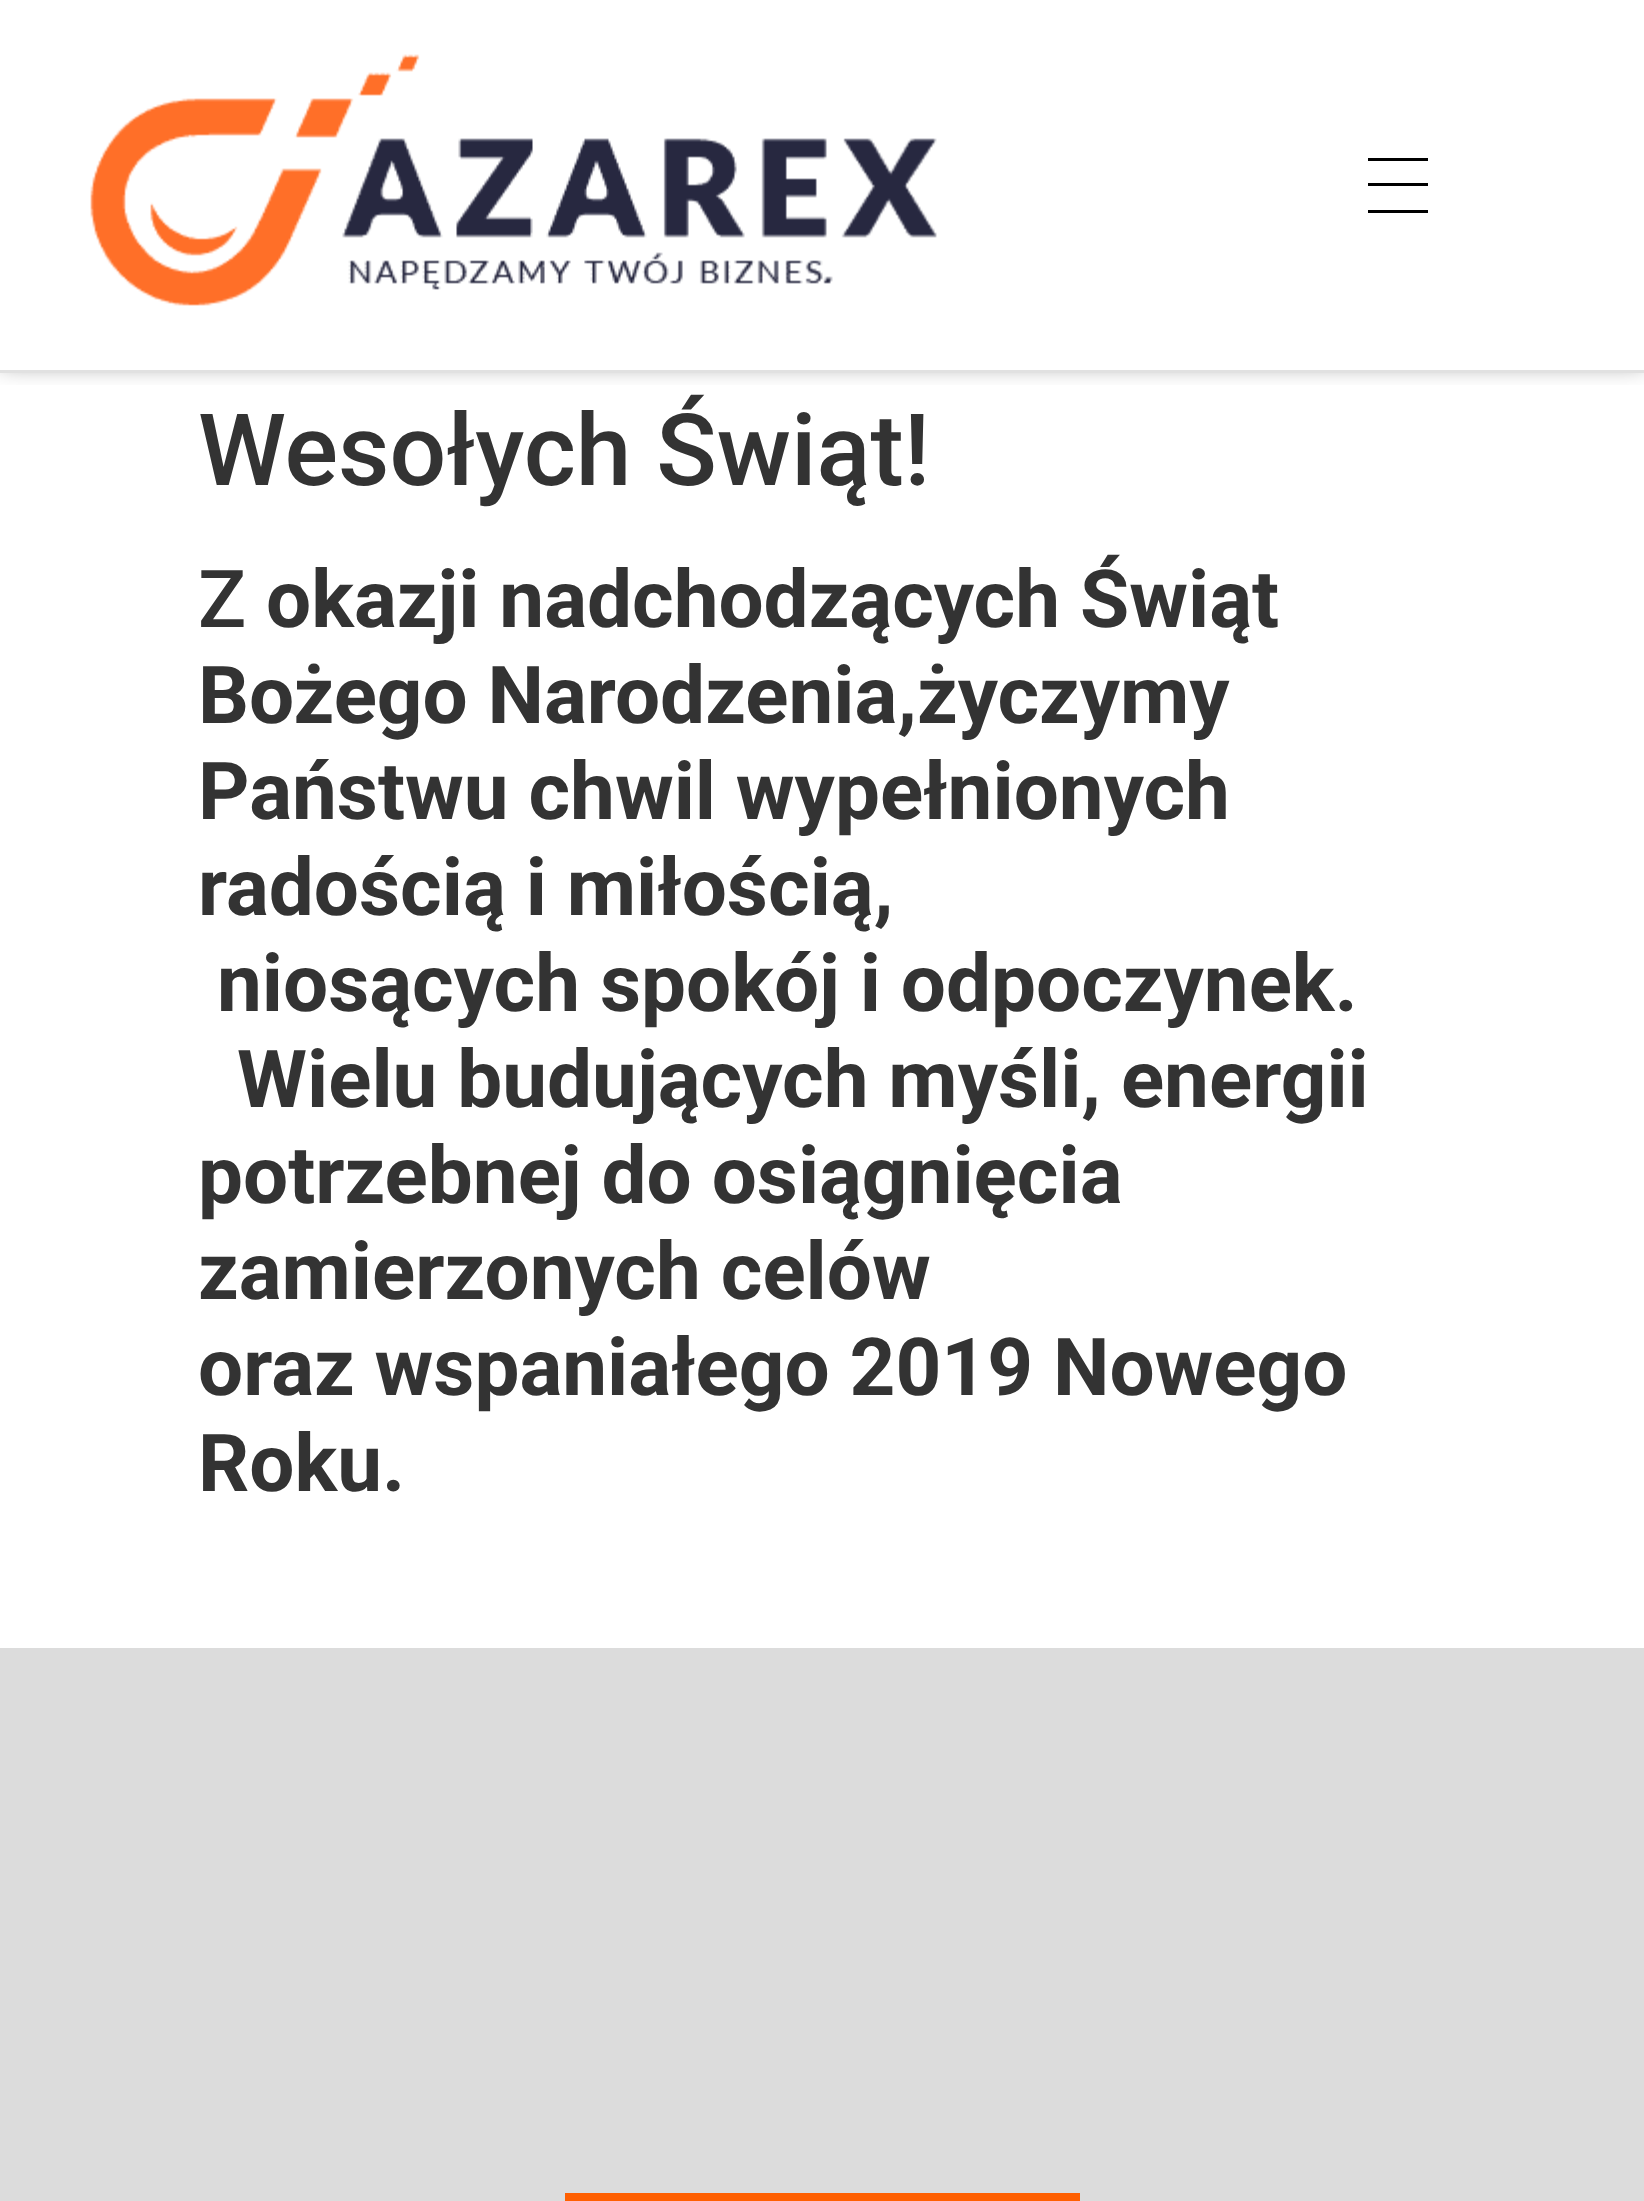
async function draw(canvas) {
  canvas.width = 1644
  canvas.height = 2201
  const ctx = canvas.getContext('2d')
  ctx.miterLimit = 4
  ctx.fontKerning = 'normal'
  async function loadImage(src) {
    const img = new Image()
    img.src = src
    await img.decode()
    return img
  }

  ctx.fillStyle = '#fff'
  ctx.fillRect(0, 0, 1644, 2201)
  ctx.save()
  ctx.beginPath()
  ctx.rect(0, 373, 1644, 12)
  ctx.clip()
  ctx.fillStyle = '#00000080'
  ctx.filter = 'blur(12.5px)'
  ctx.beginPath()
  ctx.rect(0, -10, 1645, 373)
  ctx.fill()
  ctx.filter = 'none'
  ctx.restore()
  ctx.fillStyle = '#e1e1e1'
  ctx.fillRect(0, 370, 1644, 3)
  ctx.drawImage(await loadImage('image0.png'), 90, 54, 847, 252)
  ctx.fillStyle = '#000'
  ctx.fillRect(1368, 158, 60, 3)
  ctx.fillRect(1368, 183, 60, 3)
  ctx.fillRect(1368, 210, 60, 3)
  ctx.font = '500 100px Roboto'
  ctx.fillStyle = '#333'
  ctx.fillText('Wesołych Świąt!', 198, 485)
  ctx.font = '500 80px Roboto'
  ctx.fillText('Z', 198, 627)
  ctx.font = 'bold 80px Roboto'
  ctx.fillText('okazji nadchodzących Świąt', 266, 627)
  ctx.fillText('Bożego Narodzenia,życzymy', 198, 723)
  ctx.fillText('Państwu chwil wypełnionych', 198, 819)
  ctx.fillText('radością i miłością,', 198, 915)
  ctx.fillText('niosących spokój i odpoczynek.', 217, 1011)
  ctx.fillText('Wielu budujących myśli, energii', 237, 1107)
  ctx.fillText('potrzebnej do osiągnięcia', 198, 1203)
  ctx.fillText('zamierzonych celów', 198, 1299)
  ctx.fillText('oraz wspaniałego 2019 Nowego', 198, 1395)
  ctx.fillText('Roku.', 198, 1491)
  ctx.fillStyle = '#dcdcdc'
  ctx.fillRect(0, 1648, 1644, 553)
  ctx.fillStyle = '#ff5f00'
  ctx.fillRect(565, 2193, 515, 8)
}

draw(document.querySelector('canvas'))
